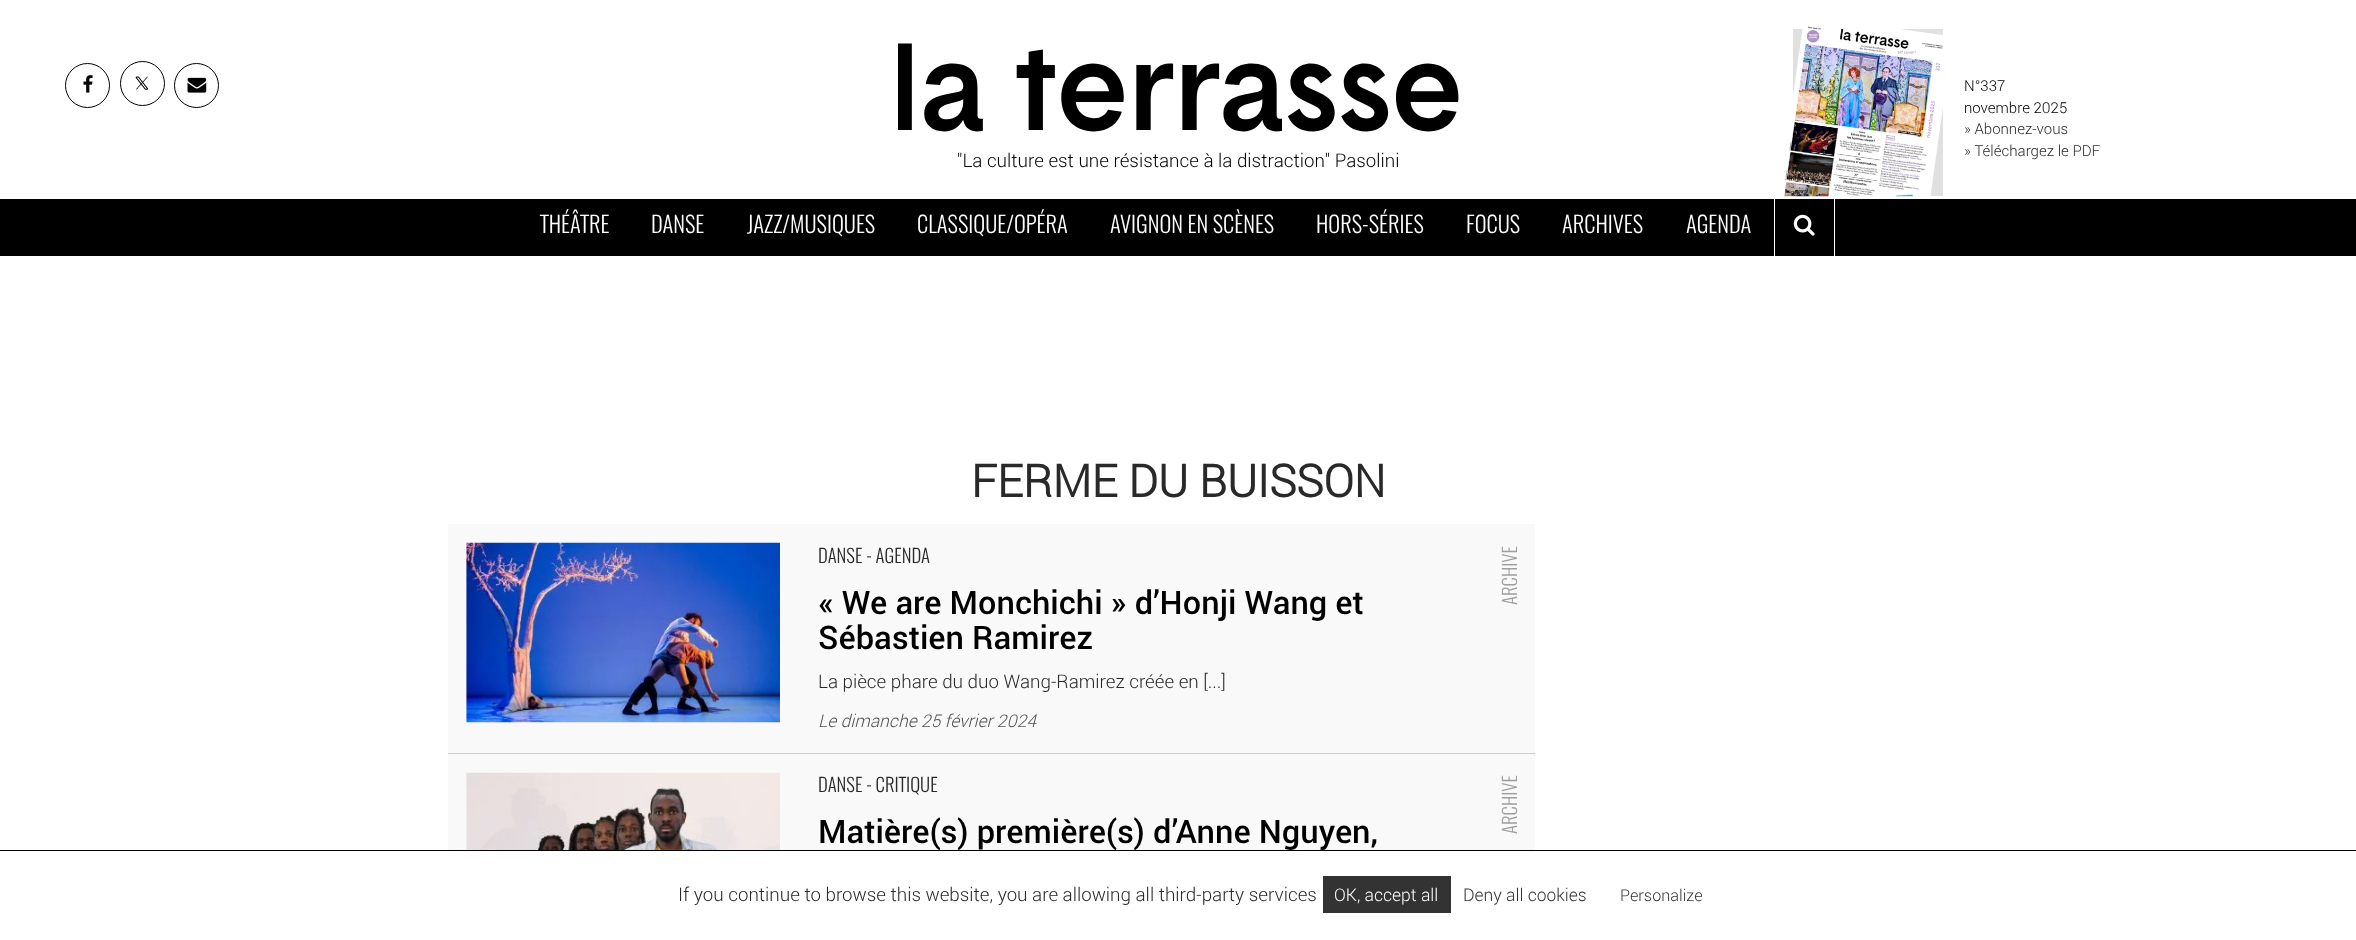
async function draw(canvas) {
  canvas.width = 2356
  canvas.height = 940
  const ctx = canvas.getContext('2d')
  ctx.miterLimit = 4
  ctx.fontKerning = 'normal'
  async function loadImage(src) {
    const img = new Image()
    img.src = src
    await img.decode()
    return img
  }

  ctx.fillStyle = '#fff'
  ctx.fillRect(0, 0, 2356, 940)
  ctx.beginPath()
  ctx.arc(87.5, 85.5, 22, 0, 2 * Math.PI)
  ctx.strokeStyle = '#000'
  ctx.stroke()
  ctx.drawImage(await loadImage('image0.png'), 83, 75, 10, 18)
  ctx.beginPath()
  ctx.arc(142.5, 83.5, 22, 0, 2 * Math.PI)
  ctx.stroke()
  ctx.drawImage(await loadImage('image1.png'), 135, 76, 13, 14)
  ctx.beginPath()
  ctx.arc(196.5, 85.5, 22, 0, 2 * Math.PI)
  ctx.stroke()
  ctx.drawImage(await loadImage('image2.png'), 187, 77, 20, 16)
  ctx.drawImage(await loadImage('image3.png'), 898, 43, 561, 89)
  ctx.font = '300 18.75px Roboto'
  ctx.fillStyle = '#000'
  ctx.fillText('"La culture est une résistance à la distraction" Pasolini', 957, 167)
  ctx.save()
  ctx.beginPath()
  ctx.rect(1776, 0, 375, 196)
  ctx.clip()
  ctx.fillStyle = '#65656533'
  ctx.filter = 'blur(0.5px)'
  ctx.beginPath()
  ctx.rect(1793, 29, 150, 214)
  ctx.fill()
  ctx.filter = 'none'
  ctx.restore()
  ctx.drawImage(await loadImage('image4.png'), 1784, 26, 159, 171)
  ctx.font = '300 15px Roboto'
  ctx.fillText('N°337', 1964, 91)
  ctx.fillText('novembre 2025', 1964, 113)
  ctx.fillStyle = '#292929'
  ctx.fillText('» Abonnez-vous', 1964, 134)
  ctx.fillText('» Téléchargez le PDF', 1964, 156)
  ctx.fillStyle = '#000'
  ctx.fillRect(0, 199, 2356, 57)
  ctx.font = '300 22.5px Oswald'
  ctx.fillStyle = '#fff'
  ctx.fillText('THÉÂTRE', 540, 233)
  ctx.fillText('DANSE', 651, 233)
  ctx.fillText('JAZZ/MUSIQUES', 747, 233)
  ctx.fillText('CLASSIQUE/OPÉRA', 917, 233)
  ctx.fillText('AVIGNON EN SCÈNES', 1110, 233)
  ctx.fillText('HORS-SÉRIES', 1316, 233)
  ctx.fillText('FOCUS', 1466, 233)
  ctx.fillText('ARCHIVES', 1562, 233)
  ctx.fillText('AGENDA', 1686, 233)
  ctx.fillRect(1834, 199, 1, 57)
  ctx.fillRect(1774, 199, 1, 57)
  ctx.drawImage(await loadImage('image5.png'), 1793, 214, 22, 22)
  ctx.font = 'bold 45px Roboto'
  ctx.fillStyle = '#292929'
  ctx.fillText('FERME DU BUISSON', 971, 497)
  ctx.fillStyle = '#f9f9f9'
  ctx.fillRect(448, 524, 1087, 229)
  ctx.drawImage(await loadImage('image6.png'), 466, 542, 314, 181)
  ctx.font = '300 18.75px Oswald'
  ctx.fillStyle = '#292929'
  ctx.fillText('DANSE - AGENDA', 818, 563)
  ctx.font = '500 32.5px Roboto'
  ctx.fillStyle = '#000'
  ctx.fillText('« We are Monchichi » d’Honji Wang et', 818, 614)
  ctx.fillText('Sébastien Ramirez', 818, 649)
  ctx.font = '300 18.75px Roboto'
  ctx.fillStyle = '#292929'
  ctx.fillText('La pièce phare du duo Wang-Ramirez créée en [...]', 818, 688)
  ctx.font = 'italic 300 17.5px Roboto'
  ctx.fillStyle = '#535353'
  ctx.fillText('Le dimanche 25 février 2024', 818, 727)
  ctx.font = '300 18.75px Oswald'
  ctx.fillStyle = '#9e9e9e'
  ctx.save()
  ctx.translate(1517, 605)
  ctx.rotate(-90 * Math.PI / 180)
  ctx.fillText('ARCHIVE', 0, 0)
  ctx.restore()
  ctx.fillStyle = '#f9f9f9'
  ctx.fillRect(448, 754, 1087, 96)
  ctx.fillStyle = '#ccc'
  ctx.fillRect(448, 753, 1087, 1)
  ctx.drawImage(await loadImage('image7.png'), 466, 772, 314, 78)
  ctx.fillStyle = '#292929'
  ctx.fillText('DANSE - CRITIQUE', 818, 792)
  ctx.font = '500 32.5px Roboto'
  ctx.fillStyle = '#000'
  ctx.fillText('Matière(s) première(s) d’Anne Nguyen,', 818, 843)
  ctx.font = '300 18.75px Oswald'
  ctx.fillStyle = '#9e9e9e'
  ctx.save()
  ctx.translate(1517, 834)
  ctx.rotate(-90 * Math.PI / 180)
  ctx.fillText('ARCHIVE', 0, 0)
  ctx.restore()
  ctx.fillStyle = '#000'
  ctx.fillRect(0, 850, 2356, 1)
  ctx.font = '300 18.75px Roboto'
  ctx.fillStyle = '#292929'
  ctx.fillText('If you continue to browse this website, you are allowing all third-party services', 678, 901)
  ctx.fillStyle = '#333'
  ctx.fillRect(1323, 876, 128, 37)
  ctx.font = '300 17.5px Roboto'
  ctx.fillStyle = '#fff'
  ctx.fillText('OK, accept all', 1334, 901)
  ctx.fillStyle = '#333'
  ctx.fillText('Deny all cookies', 1463, 901)
  ctx.font = '300 16.25px Roboto'
  ctx.fillText('Personalize', 1620, 901)
}

draw(document.querySelector('canvas'))
